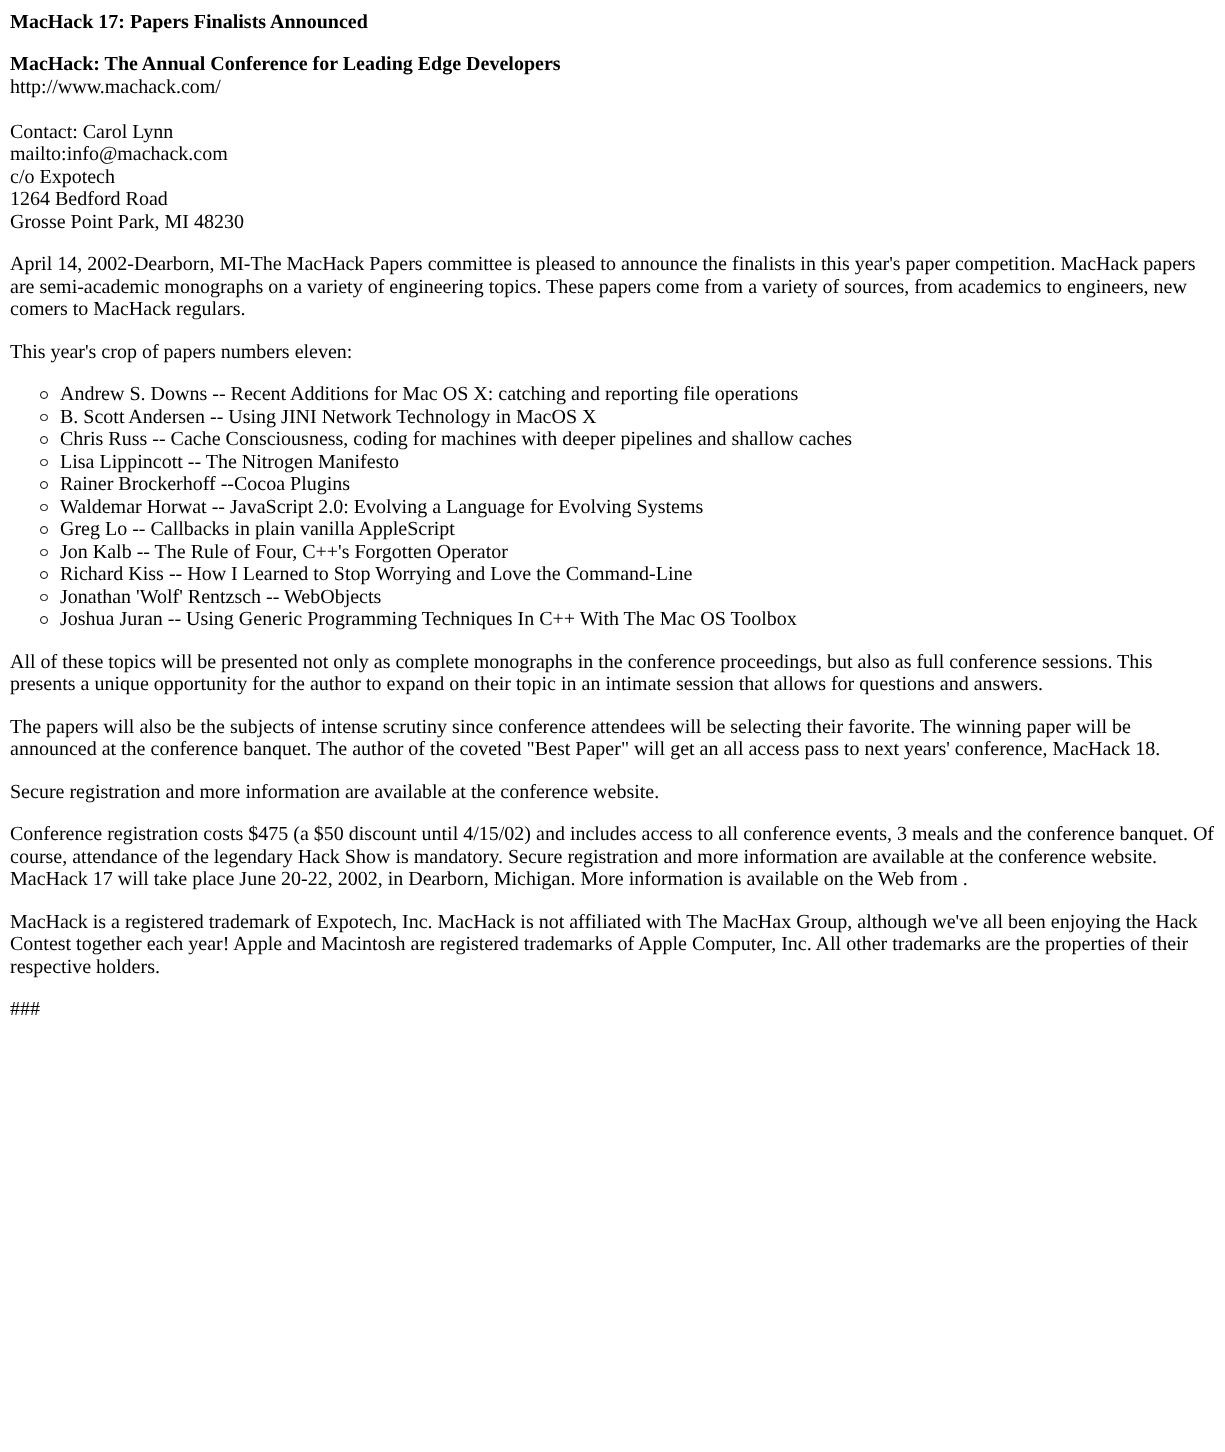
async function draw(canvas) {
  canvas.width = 1225
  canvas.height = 1452
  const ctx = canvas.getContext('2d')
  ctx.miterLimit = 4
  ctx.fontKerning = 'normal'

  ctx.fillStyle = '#fff'
  ctx.fillRect(0, 0, 1225, 1452)
  ctx.font = 'bold 20px Liberation Serif'
  ctx.fillStyle = '#000'
  ctx.fillText('MacHack 17: Papers Finalists Announced', 10, 28)
  ctx.fillText('MacHack: The Annual Conference for Leading Edge Developers', 10, 70)
  ctx.font = '20px Liberation Serif'
  ctx.fillText('http://www.machack.com/', 10, 93)
  ctx.fillText('Contact: Carol Lynn', 10, 138)
  ctx.fillText('mailto:info@machack.com', 10, 160)
  ctx.fillText('c/o Expotech', 10, 183)
  ctx.fillText('1264 Bedford Road', 10, 205)
  ctx.fillText('Grosse Point Park, MI 48230', 10, 228)
  ctx.fillText('April 14, 2002-Dearborn, MI-The MacHack Papers committee is pleased to announce the finalists in this year\'s paper competition. MacHack papers', 10, 270)
  ctx.fillText('are semi-academic monographs on a variety of engineering topics.', 10, 293)
  ctx.fillText('These papers come from a variety of sources, from academics to engineers, new', 546, 293)
  ctx.fillText('comers to MacHack regulars.', 10, 315)
  ctx.fillText('This year\'s crop of papers numbers eleven:', 10, 358)
  ctx.beginPath()
  ctx.arc(44, 395, 3.5, 0, 2 * Math.PI)
  ctx.strokeStyle = '#000'
  ctx.stroke()
  ctx.fillText('Andrew S. Downs -- Recent Additions for Mac OS X: catching and reporting file operations', 60, 400)
  ctx.beginPath()
  ctx.roundRect(40.5, 414.5, 7, 6, 3)
  ctx.stroke()
  ctx.fillText('B. Scott Andersen -- Using JINI Network Technology in MacOS X', 60, 423)
  ctx.beginPath()
  ctx.arc(44, 440, 3.5, 0, 2 * Math.PI)
  ctx.stroke()
  ctx.fillText('Chris Russ -- Cache Consciousness, coding for machines with deeper pipelines and shallow caches', 60, 445)
  ctx.beginPath()
  ctx.roundRect(40.5, 459.5, 7, 6, 3)
  ctx.stroke()
  ctx.fillText('Lisa Lippincott -- The Nitrogen Manifesto', 60, 468)
  ctx.beginPath()
  ctx.arc(44, 485, 3.5, 0, 2 * Math.PI)
  ctx.stroke()
  ctx.fillText('Rainer Brockerhoff --Cocoa Plugins', 60, 490)
  ctx.beginPath()
  ctx.roundRect(40.5, 504.5, 7, 6, 3)
  ctx.stroke()
  ctx.fillText('Waldemar Horwat -- JavaScript 2.0: Evolving a Language for Evolving Systems', 60, 513)
  ctx.beginPath()
  ctx.arc(44, 530, 3.5, 0, 2 * Math.PI)
  ctx.stroke()
  ctx.fillText('Greg Lo -- Callbacks in plain vanilla AppleScript', 60, 535)
  ctx.beginPath()
  ctx.roundRect(40.5, 549.5, 7, 6, 3)
  ctx.stroke()
  ctx.fillText('Jon Kalb -- The Rule of Four, C++\'s Forgotten Operator', 60, 558)
  ctx.beginPath()
  ctx.arc(44, 575, 3.5, 0, 2 * Math.PI)
  ctx.stroke()
  ctx.fillText('Richard Kiss -- How I Learned to Stop Worrying and Love the Command-Line', 60, 580)
  ctx.beginPath()
  ctx.roundRect(40.5, 594.5, 7, 6, 3)
  ctx.stroke()
  ctx.fillText('Jonathan \'Wolf\' Rentzsch -- WebObjects', 60, 603)
  ctx.beginPath()
  ctx.arc(44, 620, 3.5, 0, 2 * Math.PI)
  ctx.stroke()
  ctx.fillText('Joshua Juran -- Using Generic Programming Techniques In C++ With The Mac OS Toolbox', 60, 625)
  ctx.fillText('All of these topics will be presented not only as complete monographs in the conference proceedings, but also as full conference sessions. This', 10, 668)
  ctx.fillText('presents a unique opportunity for the author to expand on their topic in an intimate session that allows for questions and answers.', 10, 690)
  ctx.fillText('The papers will also be the subjects of intense scrutiny since conference attendees will be selecting their favorite. The winning paper will be', 10, 733)
  ctx.fillText('announced at the conference banquet. The author of the coveted "Best Paper" will get an all access pass to next years\' conference, MacHack 18.', 10, 755)
  ctx.fillText('Secure registration and more information are available at the conference website.', 10, 798)
  ctx.fillText('Conference registration costs $475 (a $50 discount until 4/15/02) and includes access to all conference events, 3 meals and the conference banquet. Of', 10, 840)
  ctx.fillText('course, attendance of the legendary Hack Show is mandatory. Secure registration and more information are available at the conference website.', 10, 863)
  ctx.fillText('MacHack 17 will take place June 20-22, 2002, in Dearborn, Michigan. More information is available on the Web from .', 10, 885)
  ctx.fillText('MacHack is a registered trademark of Expotech, Inc. MacHack is not affiliated with The MacHax Group, although we\'ve all been enjoying the Hack', 10, 928)
  ctx.fillText('Contest together each year! Apple and Macintosh are registered trademarks of Apple Computer, Inc. All other trademarks are the properties of their', 10, 950)
  ctx.fillText('respective holders.', 10, 973)
  ctx.fillText('###', 10, 1015)
}

draw(document.querySelector('canvas'))
